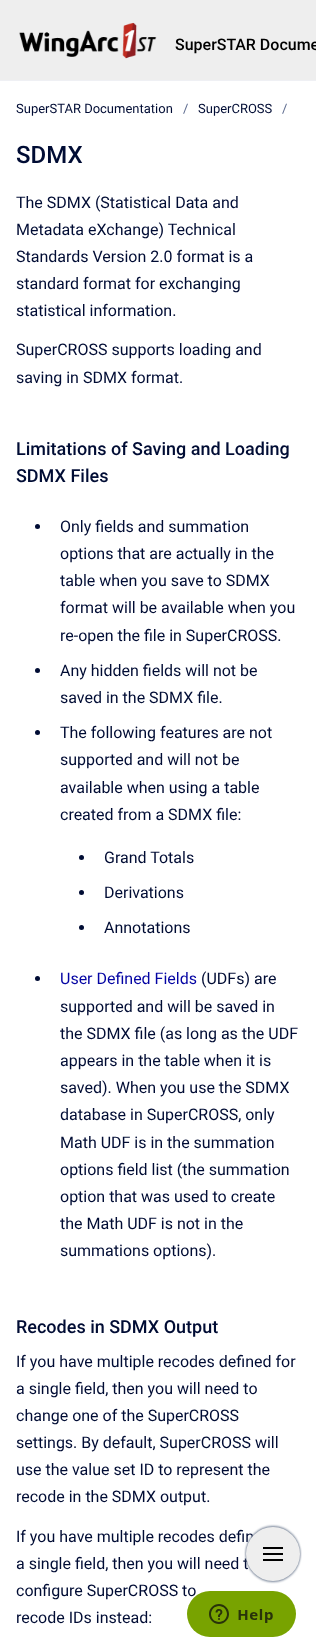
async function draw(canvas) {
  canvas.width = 316
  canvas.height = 1651
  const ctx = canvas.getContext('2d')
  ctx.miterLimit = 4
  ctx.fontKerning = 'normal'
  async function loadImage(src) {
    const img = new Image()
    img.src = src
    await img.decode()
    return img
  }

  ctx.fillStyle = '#fff'
  ctx.fillRect(0, 0, 316, 1651)
  ctx.fillStyle = '#eee'
  ctx.fillRect(0, 0, 316, 80)
  ctx.fillStyle = '#eff0f4'
  ctx.fillRect(0, 80, 316, 1)
  ctx.drawImage(await loadImage('image0.png'), 19, 22, 138, 37)
  ctx.font = '500 16px Roboto'
  ctx.fillStyle = '#000'
  ctx.fillText('SuperSTAR Docume', 175, 50)
  ctx.font = '13px Roboto'
  ctx.fillStyle = '#000c34'
  ctx.fillText('SuperSTAR Documentation', 16, 113)
  ctx.fillStyle = '#5d6b8f'
  ctx.fillText('/', 183, 113)
  ctx.fillStyle = '#000c34'
  ctx.fillText('SuperCROSS', 198, 113)
  ctx.fillStyle = '#5d6b8f'
  ctx.fillText('/', 282, 113)
  ctx.font = '500 24px Roboto'
  ctx.fillStyle = '#000c34'
  ctx.fillText('SDMX', 16, 163)
  ctx.font = '16px Roboto'
  ctx.fillText('The SDMX (Statistical Data and', 16, 208)
  ctx.fillText('Metadata eXchange) Technical', 16, 235)
  ctx.fillText('Standards Version 2.0 format is a', 16, 262)
  ctx.fillText('standard format for exchanging', 16, 289)
  ctx.fillText('statistical information.', 16, 316)
  ctx.fillText('SuperCROSS supports loading and', 16, 355)
  ctx.fillText('saving in SDMX format.', 16, 383)
  ctx.font = '500 18px Roboto'
  ctx.fillText('Limitations of Saving and Loading', 16, 455)
  ctx.fillText('SDMX Files', 16, 482)
  ctx.beginPath()
  ctx.arc(37.5, 526.5, 2.5, 0, 2 * Math.PI)
  ctx.fill()
  ctx.font = '16px Roboto'
  ctx.fillText('Only fields and summation', 60, 532)
  ctx.fillText('options that are actually in the', 60, 559)
  ctx.fillText('table when you save to SDMX', 60, 586)
  ctx.fillText('format will be available when you', 60, 613)
  ctx.fillText('re-open the file in SuperCROSS.', 60, 641)
  ctx.beginPath()
  ctx.arc(37.5, 670.5, 2.5, 0, 2 * Math.PI)
  ctx.fill()
  ctx.fillText('Any hidden fields will not be', 60, 676)
  ctx.fillText('saved in the SDMX file.', 60, 703)
  ctx.beginPath()
  ctx.arc(37.5, 732.5, 2.5, 0, 2 * Math.PI)
  ctx.fill()
  ctx.fillText('The following features are not', 60, 738)
  ctx.fillText('supported and will not be', 60, 765)
  ctx.fillText('available when using a table', 60, 793)
  ctx.fillText('created from a SDMX file:', 60, 820)
  ctx.beginPath()
  ctx.arc(81.5, 857.5, 2.5, 0, 2 * Math.PI)
  ctx.fill()
  ctx.fillText('Grand Totals', 104, 863)
  ctx.beginPath()
  ctx.arc(81.5, 892.5, 2.5, 0, 2 * Math.PI)
  ctx.fill()
  ctx.fillText('Derivations', 104, 898)
  ctx.beginPath()
  ctx.arc(81.5, 927.5, 2.5, 0, 2 * Math.PI)
  ctx.fill()
  ctx.fillText('Annotations', 104, 933)
  ctx.beginPath()
  ctx.arc(37.5, 978.5, 2.5, 0, 2 * Math.PI)
  ctx.fill()
  ctx.fillStyle = '#0404a3'
  ctx.fillText('User Defined Fields', 60, 984)
  ctx.fillStyle = '#000c34'
  ctx.fillText('(UDFs) are', 201, 984)
  ctx.fillText('supported and will be saved in', 60, 1012)
  ctx.fillText('the SDMX file (as long as the UDF', 60, 1039)
  ctx.fillText('appears in the table when it is', 60, 1066)
  ctx.fillText('saved). When you use the SDMX', 60, 1093)
  ctx.fillText('database in SuperCROSS, only', 60, 1120)
  ctx.fillText('Math UDF is in the summation', 60, 1148)
  ctx.fillText('options field list (the summation', 60, 1175)
  ctx.fillText('option that was used to create', 60, 1202)
  ctx.fillText('the Math UDF is not in the', 60, 1229)
  ctx.fillText('summations options).', 60, 1256)
  ctx.font = '500 18px Roboto'
  ctx.fillText('Recodes in SDMX Output', 16, 1333)
  ctx.font = '16px Roboto'
  ctx.fillText('If you have multiple recodes defined for', 16, 1367)
  ctx.fillText('a single field, then you will need to', 16, 1394)
  ctx.fillText('change one of the SuperCROSS', 16, 1421)
  ctx.fillText('settings. By default, SuperCROSS will', 16, 1448)
  ctx.fillText('use the value set ID to represent the', 16, 1475)
  ctx.fillText('recode in the SDMX output.', 16, 1502)
  ctx.fillText('If you have multiple recodes defin', 16, 1542)
  ctx.fillText('a single field, then you will need t', 16, 1569)
  ctx.fillText('configure SuperCROSS to', 16, 1596)
  ctx.fillText('recode IDs instead:', 16, 1623)
  ctx.fillStyle = '#7a869a'
  ctx.filter = 'blur(1px)'
  ctx.beginPath()
  ctx.roundRect(246, 1526, 54, 54, 27)
  ctx.fill()
  ctx.filter = 'none'
  ctx.filter = 'blur(1px)'
  ctx.beginPath()
  ctx.roundRect(246, 1528, 54, 54, 27)
  ctx.fill()
  ctx.filter = 'none'
  ctx.fillStyle = '#eee'
  ctx.beginPath()
  ctx.arc(273, 1554, 27, 0, 2 * Math.PI)
  ctx.fill()
  ctx.fillStyle = '#000'
  ctx.fillRect(263, 1547, 20, 2)
  ctx.fillRect(263, 1553, 20, 2)
  ctx.fillRect(263, 1559, 20, 2)
  ctx.drawImage(await loadImage('image1.png'), 187, 1591, 109, 46)
}

draw(document.querySelector('canvas'))
